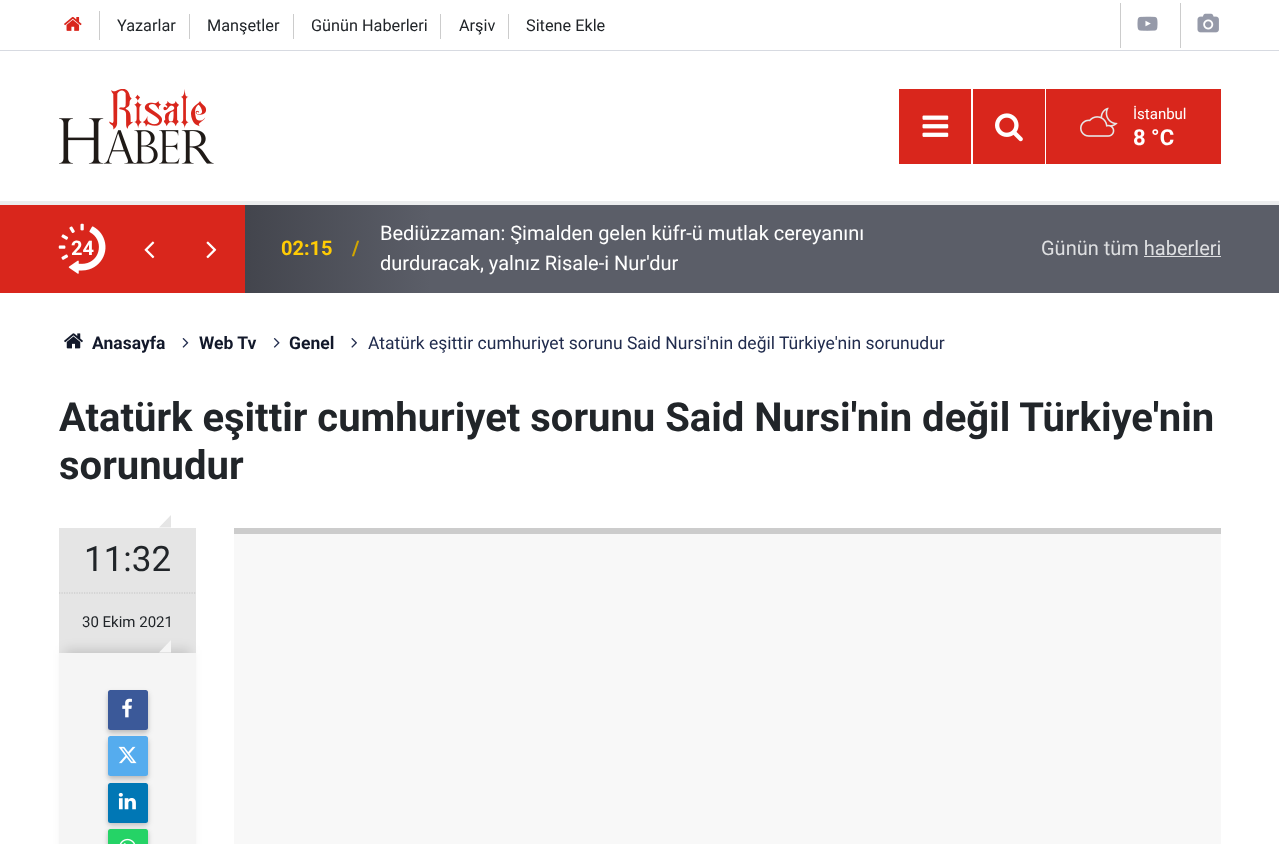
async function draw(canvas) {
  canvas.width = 1279
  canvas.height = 844
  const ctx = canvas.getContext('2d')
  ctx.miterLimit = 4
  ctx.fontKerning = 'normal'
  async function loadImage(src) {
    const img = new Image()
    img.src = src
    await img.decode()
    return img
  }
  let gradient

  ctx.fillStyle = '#fff'
  ctx.fillRect(0, 0, 1279, 844)
  ctx.fillStyle = '#ccc'
  ctx.fillRect(99, 11, 1, 29)
  ctx.drawImage(await loadImage('image0.png'), 64, 16, 18, 15)
  ctx.fillRect(189, 14, 1, 25)
  ctx.font = '16.25px Roboto'
  ctx.fillStyle = '#212529'
  ctx.fillText('Yazarlar', 117, 31)
  ctx.fillStyle = '#ccc'
  ctx.fillRect(293, 14, 1, 25)
  ctx.fillStyle = '#212529'
  ctx.fillText('Manşetler', 207, 31)
  ctx.fillStyle = '#ccc'
  ctx.fillRect(440, 14, 1, 25)
  ctx.fillStyle = '#212529'
  ctx.fillText('Günün Haberleri', 311, 31)
  ctx.fillStyle = '#ccc'
  ctx.fillRect(508, 14, 1, 25)
  ctx.fillStyle = '#212529'
  ctx.fillText('Arşiv', 459, 31)
  ctx.fillText('Sitene Ekle', 526, 31)
  ctx.fillStyle = '#ccc'
  ctx.fillRect(1120, 3, 1, 45)
  ctx.drawImage(await loadImage('image1.png'), 1137, 16, 21, 15)
  ctx.fillRect(1180, 3, 1, 45)
  ctx.drawImage(await loadImage('image2.png'), 1197, 13, 22, 20)
  ctx.fillStyle = '#d7dae1'
  ctx.fillRect(0, 50, 1279, 1)
  ctx.fillStyle = '#ecedee'
  ctx.fillRect(0, 201, 1279, 4)
  ctx.drawImage(await loadImage('image3.png'), 59, 89, 155, 75)
  ctx.fillStyle = '#d9261c'
  ctx.fillRect(899, 89, 72, 75)
  ctx.drawImage(await loadImage('image4.png'), 922, 115, 27, 22)
  ctx.fillRect(973, 89, 72, 75)
  ctx.drawImage(await loadImage('image5.png'), 995, 113, 28, 29)
  ctx.fillRect(1046, 89, 175, 75)
  ctx.drawImage(await loadImage('image6.png'), 1080, 107, 38, 30)
  ctx.font = '15px Roboto'
  ctx.fillStyle = '#fff'
  ctx.fillText('İstanbul', 1133, 119)
  ctx.font = 'bold 22px Roboto'
  ctx.fillText('8 °C', 1133, 145)
  ctx.fillStyle = '#d9261c'
  ctx.fillRect(0, 205, 59, 88)
  ctx.fillStyle = '#5b5e68'
  ctx.fillRect(1221, 205, 58, 88)
  gradient = ctx.createLinearGradient(59, 249, 1221, 249)
  gradient.addColorStop(0.05, '#d9261c')
  gradient.addColorStop(0.16, '#d9261c')
  gradient.addColorStop(0.16, '#43454d')
  gradient.addColorStop(0.32, '#5b5e68')
  ctx.fillStyle = gradient
  ctx.fillRect(59, 205, 1162, 88)
  ctx.drawImage(await loadImage('image7.png'), 58, 223, 48, 51)
  ctx.font = 'bold 20px Roboto'
  ctx.fillStyle = '#fff'
  ctx.fillText('24', 71, 255)
  ctx.drawImage(await loadImage('image8.png'), 144, 241, 11, 18)
  ctx.drawImage(await loadImage('image9.png'), 206, 241, 11, 18)
  ctx.fillStyle = '#ffcb05'
  ctx.fillText('02:15', 281, 255)
  ctx.fillStyle = '#d1a600'
  ctx.fillText('/', 352, 255)
  ctx.font = '20px Roboto'
  ctx.fillStyle = '#fff'
  ctx.fillText('Bediüzzaman: Şimalden gelen küfr-ü mutlak cereyanını', 380, 240)
  ctx.fillText('durduracak, yalnız Risale-i Nur\'dur', 380, 270)
  ctx.fillStyle = '#dedfe1'
  ctx.fillText('Günün tüm haberleri', 1041, 255)
  ctx.fillRect(1144, 256, 77, 1)
  ctx.drawImage(await loadImage('image10.png'), 64, 333, 19, 16)
  ctx.font = 'bold 17.5px Roboto'
  ctx.fillStyle = '#12182a'
  ctx.fillText('Anasayfa', 92, 349)
  ctx.drawImage(await loadImage('image11.png'), 182, 338, 7, 10)
  ctx.fillText('Web Tv', 199, 349)
  ctx.drawImage(await loadImage('image12.png'), 273, 338, 7, 10)
  ctx.fillText('Genel', 289, 349)
  ctx.drawImage(await loadImage('image13.png'), 351, 338, 6, 10)
  ctx.font = '17.5px Roboto'
  ctx.fillStyle = '#212c4e'
  ctx.fillText('Atatürk eşittir cumhuriyet sorunu Said Nursi\'nin değil Türkiye\'nin sorunudur', 368, 349)
  ctx.font = 'bold 40px Roboto'
  ctx.fillStyle = '#212529'
  ctx.fillText('Atatürk eşittir cumhuriyet sorunu Said Nursi\'nin değil Türkiye\'nin', 59, 431)
  ctx.fillText('sorunudur', 59, 479)
  ctx.fillStyle = '#e5e5e5'
  ctx.fillRect(59, 528, 137, 125)
  ctx.beginPath()
  ctx.moveTo(171, 527.5)
  ctx.lineTo(159, 527.5)
  ctx.lineTo(171, 515)
  ctx.closePath()
  ctx.fill()
  ctx.font = '35px Roboto'
  ctx.fillStyle = '#212529'
  ctx.fillText('11:32', 84, 571)
  ctx.beginPath()
  ctx.moveTo(59, 593)
  ctx.lineTo(196, 593)
  ctx.strokeStyle = '#c3c3c3'
  ctx.lineWidth = 1.2
  ctx.setLineDash([1.25, 1.25])
  ctx.stroke()
  ctx.font = '15px Roboto'
  ctx.fillText('30 Ekim 2021', 82, 627)
  ctx.fillStyle = '#00000026'
  ctx.filter = 'blur(6px)'
  ctx.beginPath()
  ctx.rect(65, 650, 125, 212)
  ctx.fill()
  ctx.filter = 'none'
  ctx.fillStyle = '#f5f5f5'
  ctx.fillRect(59, 653, 137, 191)
  ctx.beginPath()
  ctx.moveTo(171, 652.5)
  ctx.lineTo(159, 652.5)
  ctx.lineTo(171, 640)
  ctx.closePath()
  ctx.fill()
  ctx.fillStyle = '#3232324d'
  ctx.filter = 'blur(2.5px)'
  ctx.beginPath()
  ctx.roundRect(108, 693, 40, 40, 2.5)
  ctx.fill()
  ctx.filter = 'none'
  ctx.fillStyle = '#3b5999'
  ctx.beginPath()
  ctx.roundRect(108, 690, 40, 40, 2.5)
  ctx.fill()
  ctx.drawImage(await loadImage('image14.png'), 122, 698, 10, 20)
  ctx.fillStyle = '#3232324d'
  ctx.filter = 'blur(2.5px)'
  ctx.beginPath()
  ctx.roundRect(108, 739, 40, 40, 2.5)
  ctx.fill()
  ctx.filter = 'none'
  ctx.fillStyle = '#55acee'
  ctx.beginPath()
  ctx.roundRect(108, 736, 40, 40, 2.5)
  ctx.fill()
  ctx.drawImage(await loadImage('image15.png'), 118, 746, 19, 18)
  ctx.fillStyle = '#3232324d'
  ctx.filter = 'blur(2.5px)'
  ctx.beginPath()
  ctx.roundRect(108, 785, 40, 40, 2.5)
  ctx.fill()
  ctx.filter = 'none'
  ctx.fillStyle = '#0077b5'
  ctx.beginPath()
  ctx.roundRect(108, 783, 40, 40, 2.5)
  ctx.fill()
  ctx.drawImage(await loadImage('image16.png'), 118, 792, 18, 18)
  ctx.fillStyle = '#3232324d'
  ctx.filter = 'blur(2.5px)'
  ctx.beginPath()
  ctx.roundRect(108, 831, 40, 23, 2.5)
  ctx.fill()
  ctx.filter = 'none'
  ctx.fillStyle = '#25d366'
  ctx.beginPath()
  ctx.roundRect(108, 829, 40, 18, 2.5)
  ctx.fill()
  ctx.drawImage(await loadImage('image17.png'), 119, 838, 17, 6)
  ctx.fillStyle = '#ccc'
  ctx.fillRect(234, 528, 987, 6)
  ctx.fillStyle = '#f8f8f8'
  ctx.fillRect(234, 534, 987, 310)
}

draw(document.querySelector('canvas'))
